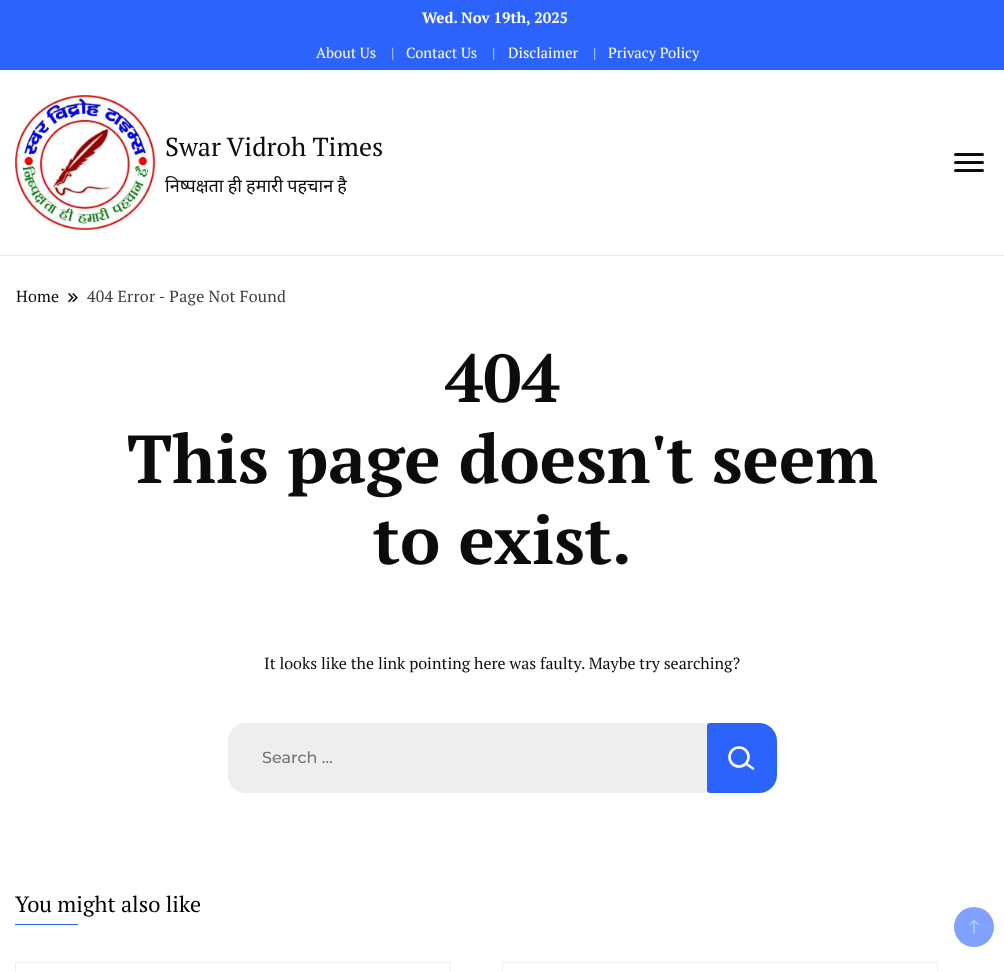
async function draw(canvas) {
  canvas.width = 1004
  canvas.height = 972
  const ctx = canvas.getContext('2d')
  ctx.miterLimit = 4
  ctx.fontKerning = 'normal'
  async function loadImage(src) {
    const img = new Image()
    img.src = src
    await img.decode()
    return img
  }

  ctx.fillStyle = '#fff'
  ctx.fillRect(0, 0, 1004, 972)
  ctx.fillStyle = '#e8e9e9'
  ctx.fillRect(0, 255, 1004, 1)
  ctx.fillStyle = '#2c63fd'
  ctx.fillRect(0, 0, 1004, 70)
  ctx.font = 'bold 15px PT Serif'
  ctx.fillStyle = '#fff'
  ctx.fillText('Wed. Nov 19th, 2025', 422, 23)
  ctx.font = '14.75px PT Serif'
  ctx.fillText('About Us', 316, 58)
  ctx.fillStyle = '#ddd'
  ctx.fillText('|', 391, 58)
  ctx.fillStyle = '#fff'
  ctx.fillText('Contact Us', 406, 58)
  ctx.fillStyle = '#ddd'
  ctx.fillText('|', 492, 58)
  ctx.fillStyle = '#fff'
  ctx.fillText('Disclaimer', 508, 58)
  ctx.fillStyle = '#ddd'
  ctx.fillText('|', 593, 58)
  ctx.fillStyle = '#fff'
  ctx.fillText('Privacy Policy', 608, 58)
  ctx.drawImage(await loadImage('image0.png'), 15, 95, 140, 135)
  ctx.font = '26px PT Serif'
  ctx.fillStyle = '#0c0c0c'
  ctx.fillText('Swar Vidroh Times', 165, 156)
  ctx.wordSpacing = '-0.5px'
  ctx.font = '18px Noto Sans'
  ctx.fillText('निष्पक्षता ही हमारी पहचान है', 165, 192)
  ctx.beginPath()
  ctx.roundRect(954, 153, 30, 3, 1.5)
  ctx.fill()
  ctx.beginPath()
  ctx.roundRect(954, 161, 30, 3, 1.5)
  ctx.fill()
  ctx.beginPath()
  ctx.roundRect(954, 169, 30, 3, 1.5)
  ctx.fill()
  ctx.letterSpacing = '0.25px'
  ctx.wordSpacing = '0px'
  ctx.font = '16px PT Serif'
  ctx.fillText('Home', 16, 302)
  ctx.drawImage(await loadImage('image1.png'), 68, 293, 10, 10)
  ctx.fillStyle = '#3d3d3d'
  ctx.fillText('404 Error - Page Not Found', 87, 302)
  ctx.letterSpacing = '0px'
  ctx.font = 'bold 67.75px PT Serif'
  ctx.fillStyle = '#0c0c0c'
  ctx.fillText('404', 445, 402)
  ctx.fillText('This page doesn\'t seem', 127, 483)
  ctx.fillText('to exist.', 373, 564)
  ctx.font = '16px PT Serif'
  ctx.fillText('It looks like the link pointing here was faulty. Maybe try searching?', 264, 669)
  ctx.fillStyle = '#eee'
  ctx.beginPath()
  ctx.roundRect(228, 723, 479, 70, [18, 3, 3, 18])
  ctx.fill()
  ctx.font = '500 16px Montserrat'
  ctx.fillStyle = '#757575'
  ctx.fillText('Search …', 262, 763)
  ctx.fillStyle = '#2c63fd'
  ctx.beginPath()
  ctx.roundRect(707, 723, 70, 70, [3, 18, 18, 3])
  ctx.fill()
  ctx.beginPath()
  ctx.arc(739, 757, 9.5, 0, 2 * Math.PI)
  ctx.strokeStyle = '#fff'
  ctx.lineWidth = 2.6
  ctx.stroke()
  ctx.beginPath()
  ctx.moveTo(746.5, 764)
  ctx.lineTo(753, 768.5)
  ctx.lineCap = 'round'
  ctx.lineJoin = 'round'
  ctx.stroke()
  ctx.font = '22px PT Serif'
  ctx.fillStyle = '#000'
  ctx.fillText('You might also like', 15, 912)
  ctx.fillStyle = '#2c63fd'
  ctx.fillRect(15, 924, 63, 1)
  ctx.strokeStyle = '#efefef'
  ctx.lineWidth = 1
  ctx.lineJoin = 'miter'
  ctx.strokeRect(15.5, 962.5, 435, 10)
  ctx.strokeRect(502.5, 962.5, 435, 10)
  ctx.fillStyle = '#80a1fe'
  ctx.beginPath()
  ctx.arc(974, 927, 20, 0, 2 * Math.PI)
  ctx.fill()
  ctx.drawImage(await loadImage('image2.png'), 969, 920, 10, 14)
}

draw(document.querySelector('canvas'))
